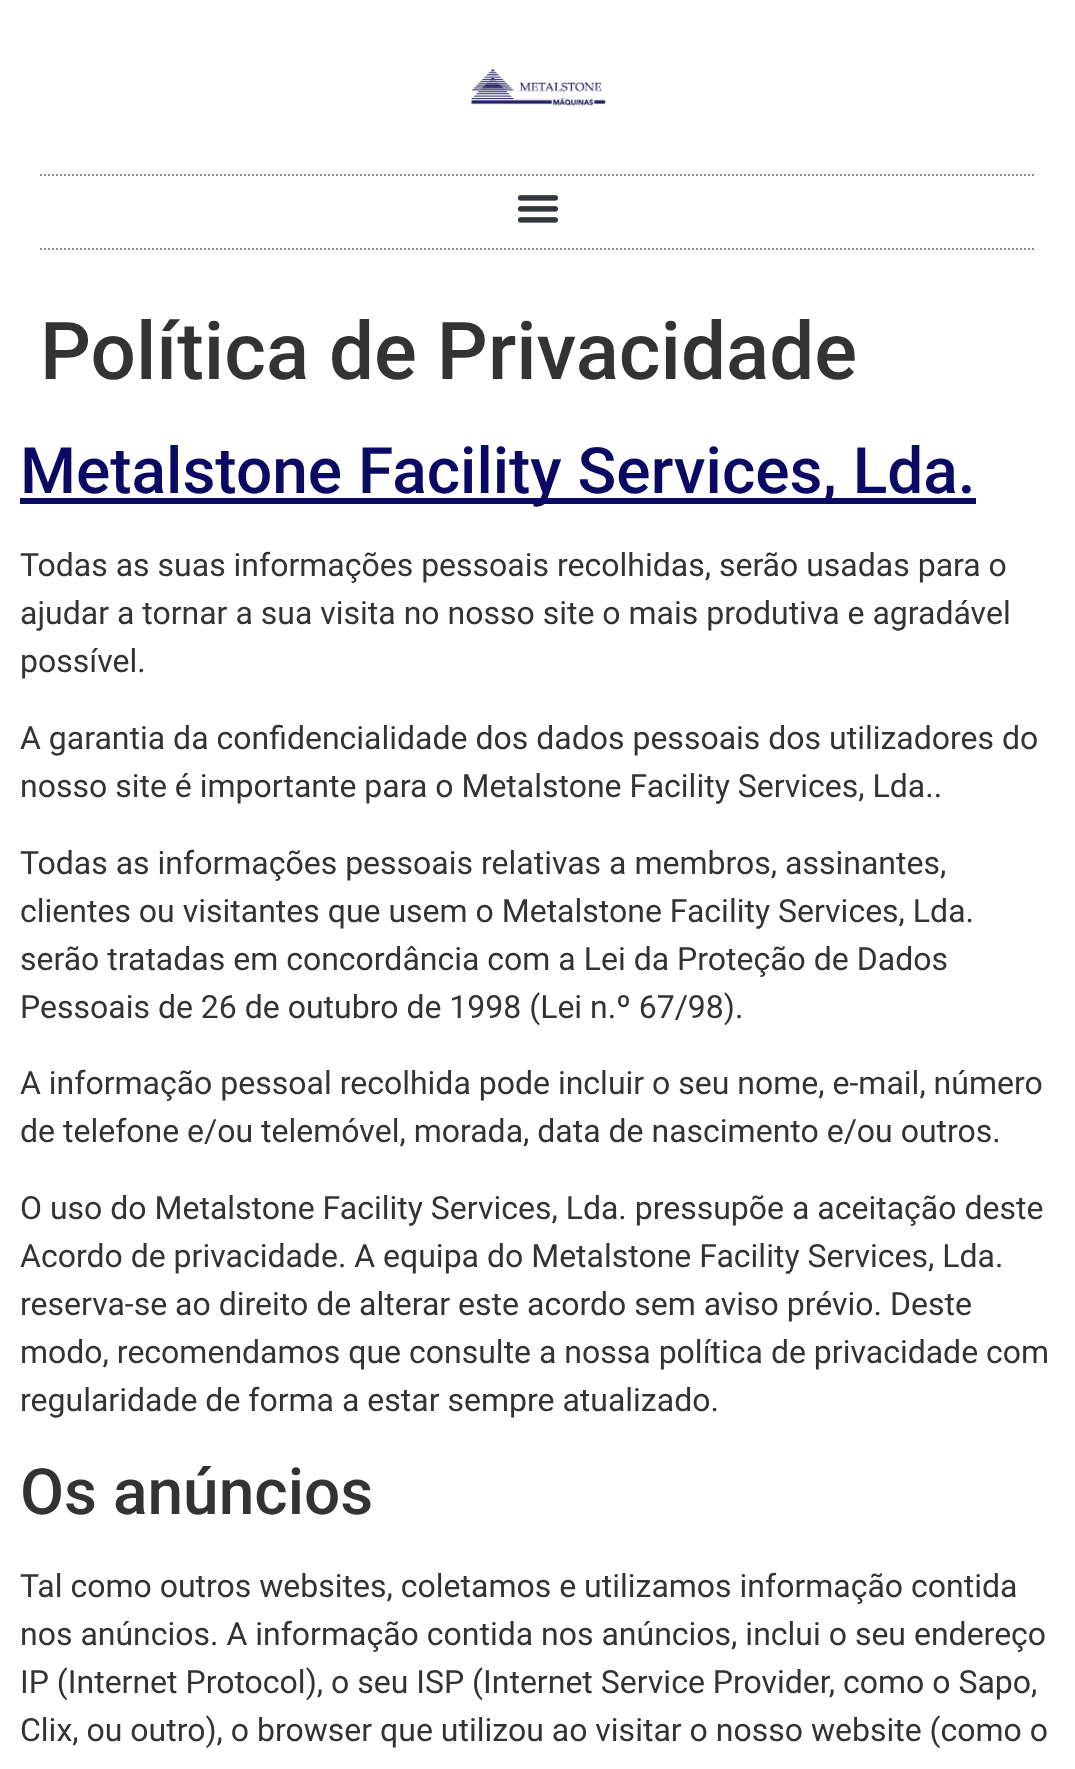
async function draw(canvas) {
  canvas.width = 1075
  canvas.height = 1769
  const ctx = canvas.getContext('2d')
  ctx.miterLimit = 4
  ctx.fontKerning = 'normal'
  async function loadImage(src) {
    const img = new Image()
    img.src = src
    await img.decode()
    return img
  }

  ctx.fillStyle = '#fff'
  ctx.fillRect(0, 0, 1075, 1769)
  ctx.drawImage(await loadImage('image0.png'), 471, 68, 135, 38)
  ctx.beginPath()
  ctx.moveTo(40, 175)
  ctx.lineTo(1036, 175)
  ctx.strokeStyle = '#8e8e8e'
  ctx.lineWidth = 2
  ctx.setLineDash([2, 2])
  ctx.stroke()
  ctx.beginPath()
  ctx.moveTo(40, 249)
  ctx.lineTo(1036, 249)
  ctx.stroke()
  ctx.drawImage(await loadImage('image1.png'), 517, 195, 42, 28)
  ctx.font = '500 80px Roboto'
  ctx.fillStyle = '#333'
  ctx.fillText('Política de Privacidade', 40, 379)
  ctx.fillStyle = '#0a0963'
  ctx.fillRect(20, 498, 956, 6)
  ctx.font = '500 64px Roboto'
  ctx.fillText('Metalstone Facility Services, Lda.', 20, 493)
  ctx.font = '32px Roboto'
  ctx.fillStyle = '#333'
  ctx.fillText('Todas as suas informações pessoais recolhidas, serão usadas para o', 20, 576)
  ctx.fillText('ajudar a tornar a sua visita no nosso site o mais produtiva e agradável', 20, 624)
  ctx.fillText('possível.', 20, 672)
  ctx.fillText('A garantia da confidencialidade dos dados pessoais dos utilizadores do', 20, 749)
  ctx.fillText('nosso site é importante para o Metalstone Facility Services, Lda..', 20, 797)
  ctx.fillText('Todas as informações pessoais relativas a membros, assinantes,', 20, 874)
  ctx.fillText('clientes ou visitantes que usem o Metalstone Facility Services, Lda.', 20, 922)
  ctx.fillText('serão tratadas em concordância com a Lei da Proteção de Dados', 20, 970)
  ctx.fillText('Pessoais de 26 de outubro de 1998 (Lei n.º 67/98).', 20, 1018)
  ctx.fillText('A informação pessoal recolhida pode incluir o seu nome, e-mail, número', 20, 1094)
  ctx.fillText('de telefone e/ou telemóvel, morada, data de nascimento e/ou outros.', 20, 1142)
  ctx.fillText('O uso do Metalstone Facility Services, Lda. pressupõe a aceitação deste', 20, 1219)
  ctx.fillText('Acordo de privacidade. A equipa do Metalstone Facility Services, Lda.', 20, 1267)
  ctx.fillText('reserva-se ao direito de alterar este acordo sem aviso prévio. Deste', 20, 1315)
  ctx.fillText('modo, recomendamos que consulte a nossa política de privacidade com', 20, 1363)
  ctx.fillText('regularidade de forma a estar sempre atualizado.', 20, 1411)
  ctx.font = '500 64px Roboto'
  ctx.fillText('Os anúncios', 20, 1514)
  ctx.font = '32px Roboto'
  ctx.fillText('Tal como outros websites, coletamos e utilizamos informação contida', 20, 1597)
  ctx.fillText('nos anúncios. A informação contida nos anúncios, inclui o seu endereço', 20, 1645)
  ctx.fillText('IP (Internet Protocol), o seu ISP (Internet Service Provider, como o Sapo,', 20, 1693)
  ctx.fillText('Clix, ou outro), o browser que utilizou ao visitar o nosso website (como o', 20, 1741)
}

draw(document.querySelector('canvas'))
